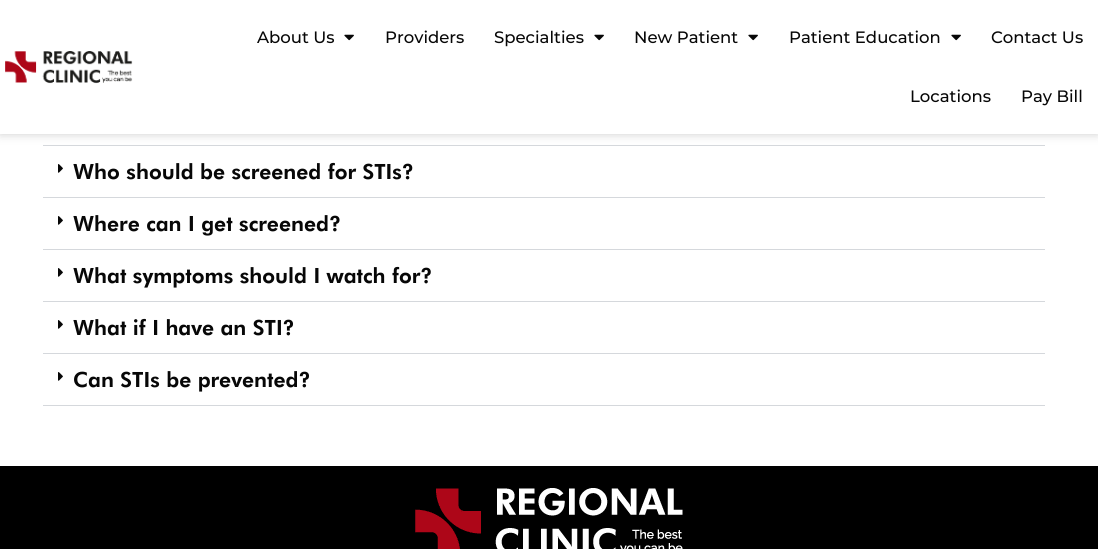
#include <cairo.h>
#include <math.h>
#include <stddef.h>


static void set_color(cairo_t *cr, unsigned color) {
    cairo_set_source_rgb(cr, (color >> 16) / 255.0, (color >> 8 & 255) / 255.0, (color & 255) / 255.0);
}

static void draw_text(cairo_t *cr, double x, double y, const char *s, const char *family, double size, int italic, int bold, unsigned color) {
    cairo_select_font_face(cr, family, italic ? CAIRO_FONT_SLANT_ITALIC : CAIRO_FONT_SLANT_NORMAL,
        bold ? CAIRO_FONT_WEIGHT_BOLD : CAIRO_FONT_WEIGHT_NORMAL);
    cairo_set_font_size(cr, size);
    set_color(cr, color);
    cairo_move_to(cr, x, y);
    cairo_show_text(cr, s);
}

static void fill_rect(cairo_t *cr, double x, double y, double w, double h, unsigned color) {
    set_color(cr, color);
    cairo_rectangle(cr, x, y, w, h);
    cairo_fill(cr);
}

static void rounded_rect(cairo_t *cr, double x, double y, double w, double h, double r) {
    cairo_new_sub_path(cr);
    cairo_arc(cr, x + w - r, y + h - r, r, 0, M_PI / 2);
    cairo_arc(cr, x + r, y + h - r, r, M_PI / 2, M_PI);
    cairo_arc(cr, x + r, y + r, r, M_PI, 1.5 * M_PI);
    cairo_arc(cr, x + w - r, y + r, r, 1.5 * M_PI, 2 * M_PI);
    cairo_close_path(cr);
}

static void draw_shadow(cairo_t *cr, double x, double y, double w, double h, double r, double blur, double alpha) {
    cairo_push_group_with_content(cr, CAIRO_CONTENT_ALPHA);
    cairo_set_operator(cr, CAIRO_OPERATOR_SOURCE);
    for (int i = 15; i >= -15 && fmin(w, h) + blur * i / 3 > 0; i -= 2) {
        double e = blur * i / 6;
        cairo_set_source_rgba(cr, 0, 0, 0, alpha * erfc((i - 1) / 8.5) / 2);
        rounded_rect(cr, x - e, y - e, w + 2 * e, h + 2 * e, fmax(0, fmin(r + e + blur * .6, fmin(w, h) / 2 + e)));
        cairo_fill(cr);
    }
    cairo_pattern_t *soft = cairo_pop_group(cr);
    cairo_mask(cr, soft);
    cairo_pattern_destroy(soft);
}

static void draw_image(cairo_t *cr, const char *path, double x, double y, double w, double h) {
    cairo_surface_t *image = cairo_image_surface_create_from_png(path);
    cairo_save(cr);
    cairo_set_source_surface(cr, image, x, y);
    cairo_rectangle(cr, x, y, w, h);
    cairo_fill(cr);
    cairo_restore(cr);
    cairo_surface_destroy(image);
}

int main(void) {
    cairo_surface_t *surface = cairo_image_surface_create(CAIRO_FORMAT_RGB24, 1098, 549);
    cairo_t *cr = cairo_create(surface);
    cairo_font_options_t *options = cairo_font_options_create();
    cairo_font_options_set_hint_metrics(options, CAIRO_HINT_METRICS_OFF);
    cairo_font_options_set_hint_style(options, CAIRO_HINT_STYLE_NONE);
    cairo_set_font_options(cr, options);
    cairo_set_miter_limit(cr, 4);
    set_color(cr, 0xFFFFFF);
    cairo_paint(cr);
    fill_rect(cr, 43, 145, 1002, 1, 0xD5D8DC);
    set_color(cr, 0x000000);
    draw_shadow(cr, 0, 0, 1098, 134, 0, 5, 0.2);
    fill_rect(cr, 0, 0, 1098, 134, 0xFFFFFF);
    draw_image(cr, "assets/img1.png", 5, 51, 128, 33);
    draw_text(cr, 257, 43, "About Us", "Montserrat Medium", 16.5, 0, 0, 0x070707);
    draw_image(cr, "assets/img2.png", 344, 34, 10, 7);
    draw_text(cr, 385, 43, "Providers", "Montserrat Medium", 16.5, 0, 0, 0x070707);
    draw_text(cr, 494, 43, "Specialties", "Montserrat Medium", 16.5, 0, 0, 0x070707);
    draw_image(cr, "assets/img2.png", 594, 34, 10, 7);
    draw_text(cr, 634, 43, "New Patient", "Montserrat Medium", 16.5, 0, 0, 0x070707);
    draw_image(cr, "assets/img2.png", 748, 34, 10, 7);
    draw_text(cr, 789, 43, "Patient Education", "Montserrat Medium", 16.5, 0, 0, 0x070707);
    draw_image(cr, "assets/img2.png", 951, 34, 10, 7);
    draw_text(cr, 991, 43, "Contact Us", "Montserrat Medium", 16.5, 0, 0, 0x070707);
    draw_text(cr, 910, 102, "Locations", "Montserrat Medium", 16.5, 0, 0, 0x070707);
    draw_text(cr, 1021, 102, "Pay Bill", "Montserrat Medium", 16.5, 0, 0, 0x070707);
    fill_rect(cr, 43, 197, 1002, 1, 0xD5D8DC);
    draw_image(cr, "assets/img3.png", 58, 164, 5, 9);
    draw_text(cr, 73, 179, "Who should be screened for STIs?", "Futura Black", 21, 0, 0, 0x070707);
    fill_rect(cr, 43, 249, 1002, 1, 0xD5D8DC);
    draw_image(cr, "assets/img3.png", 58, 216, 5, 9);
    draw_text(cr, 73, 231, "Where can I get screened?", "Futura Black", 21, 0, 0, 0x070707);
    fill_rect(cr, 43, 301, 1002, 1, 0xD5D8DC);
    draw_image(cr, "assets/img3.png", 58, 268, 5, 9);
    draw_text(cr, 73, 283, "What symptoms should I watch for?", "Futura Black", 21, 0, 0, 0x070707);
    fill_rect(cr, 43, 353, 1002, 1, 0xD5D8DC);
    draw_image(cr, "assets/img3.png", 58, 320, 5, 9);
    draw_text(cr, 73, 335, "What if I have an STI?", "Futura Black", 21, 0, 0, 0x070707);
    fill_rect(cr, 43, 405, 1002, 1, 0xD5D8DC);
    draw_image(cr, "assets/img3.png", 58, 372, 5, 9);
    draw_text(cr, 73, 387, "Can STIs be prevented?", "Futura Black", 21, 0, 0, 0x070707);
    fill_rect(cr, 0, 466, 1098, 83, 0x000000);
    draw_image(cr, "assets/img4.png", 415, 488, 268, 61);
    cairo_surface_write_to_png(surface, "output.png");
    cairo_font_options_destroy(options);
    cairo_destroy(cr);
    cairo_surface_destroy(surface);
    return 0;
}
